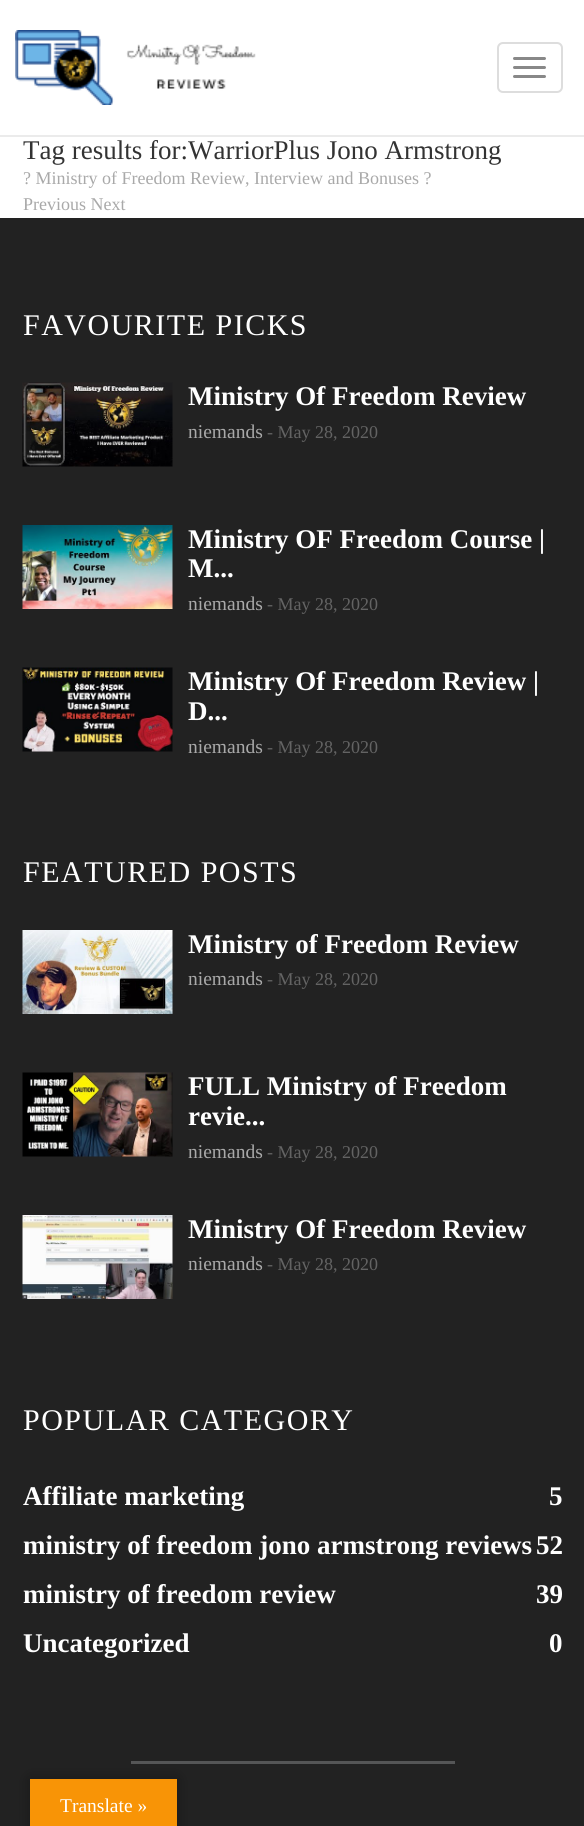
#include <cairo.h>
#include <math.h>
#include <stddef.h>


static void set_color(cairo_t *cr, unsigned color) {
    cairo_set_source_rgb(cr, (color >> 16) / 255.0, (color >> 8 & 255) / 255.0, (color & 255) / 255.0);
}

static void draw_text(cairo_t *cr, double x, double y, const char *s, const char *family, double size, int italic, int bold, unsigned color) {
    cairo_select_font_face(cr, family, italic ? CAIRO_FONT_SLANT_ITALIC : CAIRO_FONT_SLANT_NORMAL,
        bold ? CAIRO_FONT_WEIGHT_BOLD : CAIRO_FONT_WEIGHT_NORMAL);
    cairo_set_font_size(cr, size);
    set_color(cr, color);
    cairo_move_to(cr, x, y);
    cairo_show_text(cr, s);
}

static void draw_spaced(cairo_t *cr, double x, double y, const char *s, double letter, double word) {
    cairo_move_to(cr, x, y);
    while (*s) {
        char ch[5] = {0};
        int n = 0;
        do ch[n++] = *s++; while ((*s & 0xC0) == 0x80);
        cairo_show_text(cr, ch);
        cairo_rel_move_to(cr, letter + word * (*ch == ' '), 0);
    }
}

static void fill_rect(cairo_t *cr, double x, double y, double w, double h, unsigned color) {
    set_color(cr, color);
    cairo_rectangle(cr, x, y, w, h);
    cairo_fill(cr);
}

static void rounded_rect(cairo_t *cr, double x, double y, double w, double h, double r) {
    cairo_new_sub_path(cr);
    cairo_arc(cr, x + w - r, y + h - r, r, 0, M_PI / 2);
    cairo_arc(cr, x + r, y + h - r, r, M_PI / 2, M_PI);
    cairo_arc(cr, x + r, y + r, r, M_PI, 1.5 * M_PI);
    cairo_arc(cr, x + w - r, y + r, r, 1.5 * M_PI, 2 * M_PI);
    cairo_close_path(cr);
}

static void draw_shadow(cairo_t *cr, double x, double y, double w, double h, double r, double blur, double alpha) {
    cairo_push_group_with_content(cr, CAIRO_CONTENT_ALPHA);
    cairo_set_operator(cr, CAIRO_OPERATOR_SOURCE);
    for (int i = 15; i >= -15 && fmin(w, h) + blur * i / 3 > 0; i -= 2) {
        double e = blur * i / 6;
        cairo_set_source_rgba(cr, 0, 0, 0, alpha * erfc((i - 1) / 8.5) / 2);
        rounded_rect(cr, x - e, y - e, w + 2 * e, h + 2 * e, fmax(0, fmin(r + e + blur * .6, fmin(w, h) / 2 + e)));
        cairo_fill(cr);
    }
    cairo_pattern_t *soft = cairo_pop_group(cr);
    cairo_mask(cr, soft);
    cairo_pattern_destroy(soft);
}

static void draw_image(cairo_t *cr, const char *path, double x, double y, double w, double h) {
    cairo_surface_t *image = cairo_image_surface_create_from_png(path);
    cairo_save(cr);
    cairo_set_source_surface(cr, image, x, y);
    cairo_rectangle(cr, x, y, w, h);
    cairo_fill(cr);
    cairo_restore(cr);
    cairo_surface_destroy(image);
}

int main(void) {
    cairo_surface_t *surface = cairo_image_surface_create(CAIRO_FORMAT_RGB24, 584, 1826);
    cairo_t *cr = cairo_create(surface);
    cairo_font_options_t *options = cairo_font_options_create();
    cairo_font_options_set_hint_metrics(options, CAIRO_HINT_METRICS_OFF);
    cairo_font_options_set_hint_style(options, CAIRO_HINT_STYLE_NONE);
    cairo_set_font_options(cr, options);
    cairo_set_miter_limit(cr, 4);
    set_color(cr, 0xFFFFFF);
    cairo_paint(cr);
    fill_rect(cr, 0, 135, 584, 2, 0xEBEBEB);
    draw_image(cr, "assets/img1.png", 15, 30, 241, 75);
    rounded_rect(cr, 498, 43, 64, 49, 5);
    set_color(cr, 0xDDDDDD);
    cairo_stroke(cr);
    set_color(cr, 0x888888);
    rounded_rect(cr, 513, 57, 33, 3, 1.5);
    cairo_fill(cr);
    rounded_rect(cr, 513, 66, 33, 3, 1.5);
    cairo_fill(cr);
    rounded_rect(cr, 513, 75, 33, 3, 1.5);
    cairo_fill(cr);
    draw_text(cr, 23, 159, "Tag results for:WarriorPlus Jono Armstrong", "Liberation Serif", 27, 0, 0, 0x333333);
    draw_text(cr, 23, 184, "? Ministry of Freedom Review, Interview and Bonuses ?", "Liberation Serif", 18, 0, 0, 0xA9A9A9);
    draw_text(cr, 23, 210, "Previous Next", "Liberation Serif", 18, 0, 0, 0xA9A9A9);
    fill_rect(cr, 0, 218, 584, 1608, 0x222222);
    cairo_set_font_size(cr, 30);
    set_color(cr, 0xFFFFFF);
    draw_spaced(cr, 23, 335, "FAVOURITE PICKS", 1.5, 0);
    draw_image(cr, "assets/img2.png", 22, 382, 151, 85);
    draw_text(cr, 188, 405, "Ministry Of Freedom Review", "Liberation Serif", 27, 0, 1, 0xFFFFFF);
    draw_text(cr, 188, 438, "niemands", "Liberation Serif", 19.5, 0, 0, 0xA9A9A9);
    draw_text(cr, 267, 438, "- May 28, 2020", "Liberation Serif", 18, 0, 0, 0x636363);
    draw_image(cr, "assets/img3.png", 22, 525, 151, 84);
    draw_text(cr, 188, 548, "Ministry OF Freedom Course |", "Liberation Serif", 27, 0, 1, 0xFFFFFF);
    draw_text(cr, 188, 577, "M...", "Liberation Serif", 27, 0, 1, 0xFFFFFF);
    draw_text(cr, 188, 610, "niemands", "Liberation Serif", 19.5, 0, 0, 0xA9A9A9);
    draw_text(cr, 267, 610, "- May 28, 2020", "Liberation Serif", 18, 0, 0, 0x636363);
    draw_image(cr, "assets/img4.png", 22, 667, 151, 85);
    draw_text(cr, 188, 690, "Ministry Of Freedom Review |", "Liberation Serif", 27, 0, 1, 0xFFFFFF);
    draw_text(cr, 188, 720, "D...", "Liberation Serif", 27, 0, 1, 0xFFFFFF);
    draw_text(cr, 188, 753, "niemands", "Liberation Serif", 19.5, 0, 0, 0xA9A9A9);
    draw_text(cr, 267, 753, "- May 28, 2020", "Liberation Serif", 18, 0, 0, 0x636363);
    cairo_set_font_size(cr, 30);
    set_color(cr, 0xFFFFFF);
    draw_spaced(cr, 23, 882, "FEATURED POSTS", 1.5, 0);
    draw_image(cr, "assets/img5.png", 22, 930, 151, 84);
    draw_text(cr, 188, 953, "Ministry of Freedom Review", "Liberation Serif", 27, 0, 1, 0xFFFFFF);
    draw_text(cr, 188, 985, "niemands", "Liberation Serif", 19.5, 0, 0, 0xA9A9A9);
    draw_text(cr, 267, 985, "- May 28, 2020", "Liberation Serif", 18, 0, 0, 0x636363);
    draw_image(cr, "assets/img6.png", 22, 1072, 151, 85);
    draw_text(cr, 188, 1095, "FULL Ministry of Freedom", "Liberation Serif", 27, 0, 1, 0xFFFFFF);
    draw_text(cr, 188, 1125, "revie...", "Liberation Serif", 27, 0, 1, 0xFFFFFF);
    draw_text(cr, 188, 1158, "niemands", "Liberation Serif", 19.5, 0, 0, 0xA9A9A9);
    draw_text(cr, 267, 1158, "- May 28, 2020", "Liberation Serif", 18, 0, 0, 0x636363);
    draw_image(cr, "assets/img7.png", 22, 1215, 151, 84);
    draw_text(cr, 188, 1238, "Ministry Of Freedom Review", "Liberation Serif", 27, 0, 1, 0xFFFFFF);
    draw_text(cr, 188, 1270, "niemands", "Liberation Serif", 19.5, 0, 0, 0xA9A9A9);
    draw_text(cr, 267, 1270, "- May 28, 2020", "Liberation Serif", 18, 0, 0, 0x636363);
    cairo_set_font_size(cr, 30);
    set_color(cr, 0xFFFFFF);
    draw_spaced(cr, 23, 1430, "POPULAR CATEGORY", 1.5, 0);
    draw_text(cr, 23, 1505, "Affiliate marketing", "Liberation Serif", 27, 0, 1, 0xFFFFFF);
    draw_text(cr, 549, 1505, "5", "Liberation Serif", 27, 0, 1, 0xFFFFFF);
    draw_text(cr, 23, 1554, "ministry of freedom jono armstrong reviews", "Liberation Serif", 27, 0, 1, 0xFFFFFF);
    draw_text(cr, 536, 1554, "52", "Liberation Serif", 27, 0, 1, 0xFFFFFF);
    draw_text(cr, 23, 1603, "ministry of freedom review", "Liberation Serif", 27, 0, 1, 0xFFFFFF);
    draw_text(cr, 536, 1603, "39", "Liberation Serif", 27, 0, 1, 0xFFFFFF);
    draw_text(cr, 23, 1652, "Uncategorized", "Liberation Serif", 27, 0, 1, 0xFFFFFF);
    draw_text(cr, 549, 1652, "0", "Liberation Serif", 27, 0, 1, 0xFFFFFF);
    fill_rect(cr, 131, 1761, 324, 3, 0x555657);
    set_color(cr, 0x000000);
    draw_shadow(cr, 30, 1779, 147, 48, 0, 7, 0.3);
    fill_rect(cr, 30, 1779, 147, 47, 0xF89406);
    draw_text(cr, 60, 1812, "Translate »", "Liberation Serif", 19.5, 0, 0, 0xFFFFFF);
    cairo_surface_write_to_png(surface, "output.png");
    cairo_font_options_destroy(options);
    cairo_destroy(cr);
    cairo_surface_destroy(surface);
    return 0;
}
